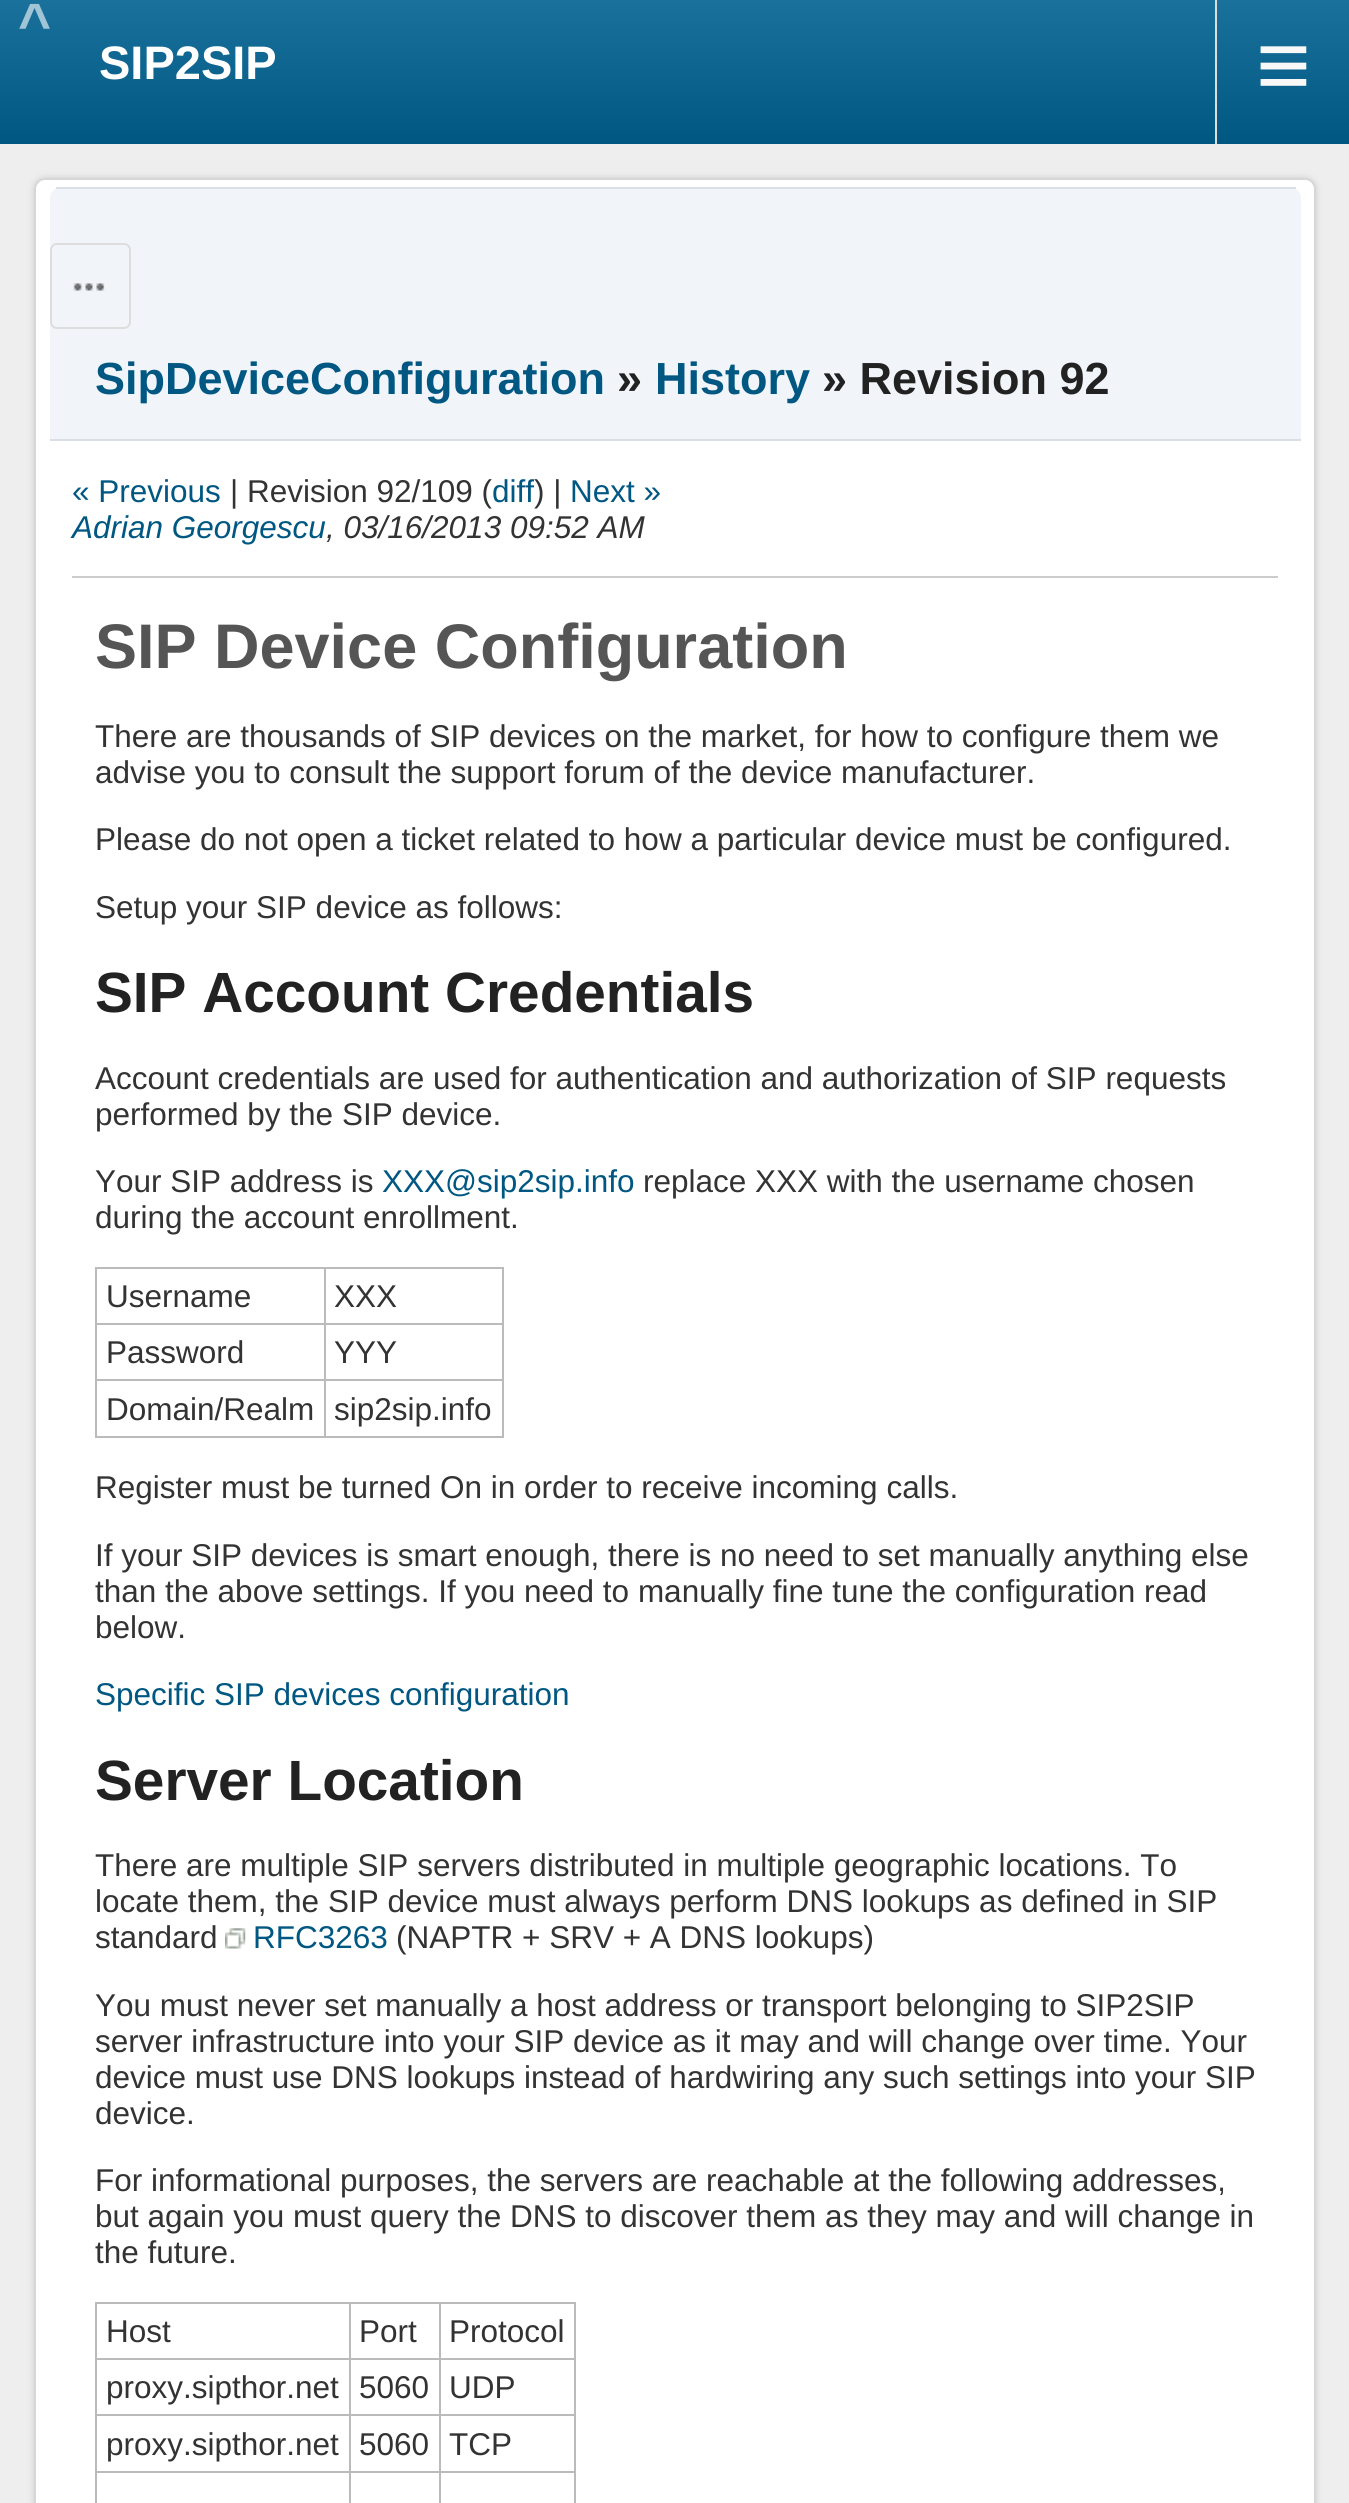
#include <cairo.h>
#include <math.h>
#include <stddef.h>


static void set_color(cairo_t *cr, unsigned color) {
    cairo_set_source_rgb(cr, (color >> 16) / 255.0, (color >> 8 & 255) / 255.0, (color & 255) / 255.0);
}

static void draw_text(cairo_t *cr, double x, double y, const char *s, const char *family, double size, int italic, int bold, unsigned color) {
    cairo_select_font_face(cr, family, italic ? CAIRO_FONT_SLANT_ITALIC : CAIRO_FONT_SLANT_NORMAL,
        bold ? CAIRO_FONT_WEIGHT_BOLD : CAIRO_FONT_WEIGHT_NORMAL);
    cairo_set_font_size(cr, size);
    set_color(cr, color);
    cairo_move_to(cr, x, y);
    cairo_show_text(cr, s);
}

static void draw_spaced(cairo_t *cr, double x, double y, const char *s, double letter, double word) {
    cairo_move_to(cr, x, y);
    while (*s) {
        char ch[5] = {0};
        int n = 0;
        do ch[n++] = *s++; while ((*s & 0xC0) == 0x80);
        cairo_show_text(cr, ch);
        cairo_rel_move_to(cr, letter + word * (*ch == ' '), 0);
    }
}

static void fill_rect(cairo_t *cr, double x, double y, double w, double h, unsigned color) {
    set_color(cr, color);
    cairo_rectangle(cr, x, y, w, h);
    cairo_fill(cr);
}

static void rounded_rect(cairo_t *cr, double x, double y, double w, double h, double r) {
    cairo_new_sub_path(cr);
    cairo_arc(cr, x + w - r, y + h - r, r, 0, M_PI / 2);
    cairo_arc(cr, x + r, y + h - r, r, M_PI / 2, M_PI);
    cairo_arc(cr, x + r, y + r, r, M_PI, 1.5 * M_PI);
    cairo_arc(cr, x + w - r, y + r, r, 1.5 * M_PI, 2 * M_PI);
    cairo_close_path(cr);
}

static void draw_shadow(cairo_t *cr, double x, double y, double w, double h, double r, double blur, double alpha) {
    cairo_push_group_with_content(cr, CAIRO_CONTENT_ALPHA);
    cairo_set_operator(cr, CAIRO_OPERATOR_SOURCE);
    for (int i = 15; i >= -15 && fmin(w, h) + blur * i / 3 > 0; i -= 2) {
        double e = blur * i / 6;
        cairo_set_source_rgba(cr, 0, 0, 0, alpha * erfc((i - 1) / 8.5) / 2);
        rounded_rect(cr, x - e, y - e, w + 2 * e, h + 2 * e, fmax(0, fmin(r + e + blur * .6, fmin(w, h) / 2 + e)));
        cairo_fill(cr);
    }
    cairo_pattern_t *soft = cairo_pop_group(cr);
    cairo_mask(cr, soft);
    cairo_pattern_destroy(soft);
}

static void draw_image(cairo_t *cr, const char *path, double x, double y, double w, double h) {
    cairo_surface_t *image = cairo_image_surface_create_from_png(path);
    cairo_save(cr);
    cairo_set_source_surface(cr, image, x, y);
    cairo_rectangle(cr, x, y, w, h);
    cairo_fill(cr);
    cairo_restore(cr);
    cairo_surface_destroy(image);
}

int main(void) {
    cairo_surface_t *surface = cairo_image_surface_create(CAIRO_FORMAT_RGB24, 1349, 2503);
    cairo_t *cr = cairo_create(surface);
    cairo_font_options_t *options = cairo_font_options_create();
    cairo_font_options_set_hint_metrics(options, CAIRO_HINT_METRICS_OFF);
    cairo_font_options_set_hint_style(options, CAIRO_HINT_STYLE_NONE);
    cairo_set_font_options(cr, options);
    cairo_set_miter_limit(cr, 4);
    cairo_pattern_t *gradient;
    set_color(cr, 0xEEEEEE);
    cairo_paint(cr);
    gradient = cairo_pattern_create_linear(0, 0, 0, 144);
    cairo_pattern_add_color_stop_rgba(gradient, 0, 0.102, 0.443, 0.612, 1);
    cairo_pattern_add_color_stop_rgba(gradient, 1, 0, 0.341, 0.51, 1);
    cairo_set_source(cr, gradient);
    cairo_pattern_destroy(gradient);
    cairo_rectangle(cr, 0, 0, 1349, 144);
    cairo_fill(cr);
    cairo_select_font_face(cr, "Liberation Sans", CAIRO_FONT_SLANT_NORMAL, CAIRO_FONT_WEIGHT_BOLD);
    cairo_set_font_size(cr, 56.75);
    set_color(cr, 0xA2C5D6);
    draw_spaced(cr, 18, 43, "^", 8, 0);
    draw_text(cr, 99, 79, "SIP2SIP", "Liberation Sans", 47, 0, 1, 0xFFFFFF);
    fill_rect(cr, 1215, 0, 2, 144, 0xDDDDDD);
    draw_text(cr, 1256, 97, "≡", "Liberation Sans", 94, 0, 0, 0xF8F8F8);
    set_color(cr, 0xCCCCCC);
    draw_shadow(cr, 34, 178, 1282, 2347, 11, 3.5, 1);
    set_color(cr, 0xFFFFFF);
    rounded_rect(cr, 35, 179, 1280, 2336, 10);
    cairo_fill_preserve(cr);
    set_color(cr, 0xD7D7D7);
    cairo_stroke(cr);
    set_color(cr, 0xF1F5FA);
    cairo_new_path(cr);
    cairo_move_to(cr, 61, 187);
    cairo_line_to(cr, 1290, 187);
    cairo_curve_to(cr, 1296, 187, 1301, 192, 1301, 198);
    cairo_line_to(cr, 1301, 441);
    cairo_line_to(cr, 50, 441);
    cairo_line_to(cr, 50, 198);
    cairo_curve_to(cr, 50, 192, 55, 187, 61, 187);
    cairo_close_path(cr);
    cairo_fill(cr);
    rounded_rect(cr, 51, 244, 79, 84, 6);
    set_color(cr, 0xDDDDDD);
    cairo_stroke(cr);
    draw_image(cr, "assets/img1.png", 73, 283, 32, 8);
    fill_rect(cr, 56, 187, 1240, 2, 0xDADEE5);
    fill_rect(cr, 50, 439, 1251, 2, 0xDADEE5);
    draw_text(cr, 95, 394, "SipDeviceConfiguration", "Liberation Sans", 45, 0, 1, 0x005782);
    draw_text(cr, 617, 394, "»", "Liberation Sans", 45, 0, 1, 0x222222);
    draw_text(cr, 655, 394, "History", "Liberation Sans", 45, 0, 1, 0x005782);
    draw_text(cr, 822, 394, "» Revision 92", "Liberation Sans", 45, 0, 1, 0x222222);
    draw_text(cr, 72, 502, "« Previous", "Liberation Sans", 31.5, 0, 0, 0x005782);
    draw_text(cr, 230, 502, "| Revision 92/109 (", "Liberation Sans", 31.5, 0, 0, 0x333333);
    draw_text(cr, 492, 502, "diff", "Liberation Sans", 31.5, 0, 0, 0x005782);
    draw_text(cr, 534, 502, ") |", "Liberation Sans", 31.5, 0, 0, 0x333333);
    draw_text(cr, 570, 502, "Next »", "Liberation Sans", 31.5, 0, 0, 0x005782);
    draw_text(cr, 72, 538, "Adrian Georgescu", "Liberation Sans", 31.5, 1, 0, 0x005782);
    draw_text(cr, 326, 538, ", 03/16/2013 09:52 AM", "Liberation Sans", 31.5, 1, 0, 0x333333);
    fill_rect(cr, 72, 576, 1206, 2, 0xCCCCCC);
    draw_text(cr, 95, 668, "SIP Device Configuration", "Liberation Sans", 63, 0, 1, 0x555555);
    draw_text(cr, 95, 747, "There are thousands of SIP devices on the market, for how to configure them we", "Liberation Sans", 31.5, 0, 0, 0x333333);
    draw_text(cr, 95, 783, "advise you to consult the support forum of the device manufacturer.", "Liberation Sans", 31.5, 0, 0, 0x333333);
    draw_text(cr, 95, 850, "Please do not open a ticket related to how a particular device must be configured.", "Liberation Sans", 31.5, 0, 0, 0x333333);
    draw_text(cr, 95, 918, "Setup your SIP device as follows:", "Liberation Sans", 31.5, 0, 0, 0x333333);
    draw_text(cr, 95, 1012, "SIP Account Credentials", "Liberation Sans", 56.75, 0, 1, 0x222222);
    draw_text(cr, 95, 1089, "Account credentials are used for authentication and authorization of SIP requests", "Liberation Sans", 31.5, 0, 0, 0x333333);
    draw_text(cr, 95, 1125, "performed by the SIP device.", "Liberation Sans", 31.5, 0, 0, 0x333333);
    draw_text(cr, 95, 1192, "Your SIP address is", "Liberation Sans", 31.5, 0, 0, 0x333333);
    draw_text(cr, 382, 1192, "XXX@sip2sip.info", "Liberation Sans", 31.5, 0, 0, 0x005782);
    draw_text(cr, 643, 1192, "replace XXX with the username chosen", "Liberation Sans", 31.5, 0, 0, 0x333333);
    draw_text(cr, 95, 1228, "during the account enrollment.", "Liberation Sans", 31.5, 0, 0, 0x333333);
    fill_rect(cr, 95, 1267, 409, 2, 0xBBBBBB);
    fill_rect(cr, 502, 1267, 2, 171, 0xBBBBBB);
    fill_rect(cr, 95, 1436, 409, 2, 0xBBBBBB);
    fill_rect(cr, 95, 1267, 2, 171, 0xBBBBBB);
    draw_text(cr, 106, 1307, "Username", "Liberation Sans", 31.5, 0, 0, 0x333333);
    fill_rect(cr, 324, 1323, 180, 2, 0xBBBBBB);
    fill_rect(cr, 324, 1379, 180, 2, 0xBBBBBB);
    fill_rect(cr, 324, 1379, 2, 59, 0xBBBBBB);
    fill_rect(cr, 95, 1379, 231, 2, 0xBBBBBB);
    fill_rect(cr, 324, 1323, 2, 59, 0xBBBBBB);
    fill_rect(cr, 95, 1323, 231, 2, 0xBBBBBB);
    fill_rect(cr, 324, 1267, 2, 58, 0xBBBBBB);
    draw_text(cr, 334, 1307, "XXX", "Liberation Sans", 31.5, 0, 0, 0x333333);
    draw_text(cr, 106, 1363, "Password", "Liberation Sans", 31.5, 0, 0, 0x333333);
    draw_text(cr, 334, 1363, "YYY", "Liberation Sans", 31.5, 0, 0, 0x333333);
    draw_text(cr, 106, 1420, "Domain/Realm", "Liberation Sans", 31.5, 0, 0, 0x333333);
    draw_text(cr, 334, 1420, "sip2sip.info", "Liberation Sans", 31.5, 0, 0, 0x333333);
    draw_text(cr, 95, 1498, "Register must be turned On in order to receive incoming calls.", "Liberation Sans", 31.5, 0, 0, 0x333333);
    draw_text(cr, 95, 1566, "If your SIP devices is smart enough, there is no need to set manually anything else", "Liberation Sans", 31.5, 0, 0, 0x333333);
    draw_text(cr, 95, 1602, "than the above settings. If you need to manually fine tune the configuration read", "Liberation Sans", 31.5, 0, 0, 0x333333);
    draw_text(cr, 95, 1638, "below.", "Liberation Sans", 31.5, 0, 0, 0x333333);
    draw_text(cr, 95, 1705, "Specific SIP devices configuration", "Liberation Sans", 31.5, 0, 0, 0x005782);
    draw_text(cr, 95, 1800, "Server Location", "Liberation Sans", 56.75, 0, 1, 0x222222);
    draw_text(cr, 95, 1876, "There are multiple SIP servers distributed in multiple geographic locations. To", "Liberation Sans", 31.5, 0, 0, 0x333333);
    draw_text(cr, 95, 1912, "locate them, the SIP device must always perform DNS lookups as defined in SIP", "Liberation Sans", 31.5, 0, 0, 0x333333);
    draw_text(cr, 95, 1948, "standard", "Liberation Sans", 31.5, 0, 0, 0x333333);
    draw_image(cr, "assets/img2.png", 225, 1928, 21, 21);
    draw_text(cr, 253, 1948, "RFC3263", "Liberation Sans", 31.5, 0, 0, 0x005782);
    draw_text(cr, 396, 1948, "(NAPTR + SRV + A DNS lookups)", "Liberation Sans", 31.5, 0, 0, 0x333333);
    draw_text(cr, 95, 2016, "You must never set manually a host address or transport belonging to SIP2SIP", "Liberation Sans", 31.5, 0, 0, 0x333333);
    draw_text(cr, 95, 2052, "server infrastructure into your SIP device as it may and will change over time. Your", "Liberation Sans", 31.5, 0, 0, 0x333333);
    draw_text(cr, 95, 2088, "device must use DNS lookups instead of hardwiring any such settings into your SIP", "Liberation Sans", 31.5, 0, 0, 0x333333);
    draw_text(cr, 95, 2124, "device.", "Liberation Sans", 31.5, 0, 0, 0x333333);
    draw_text(cr, 95, 2191, "For informational purposes, the servers are reachable at the following addresses,", "Liberation Sans", 31.5, 0, 0, 0x333333);
    draw_text(cr, 95, 2227, "but again you must query the DNS to discover them as they may and will change in", "Liberation Sans", 31.5, 0, 0, 0x333333);
    draw_text(cr, 95, 2263, "the future.", "Liberation Sans", 31.5, 0, 0, 0x333333);
    fill_rect(cr, 95, 2302, 481, 2, 0xBBBBBB);
    fill_rect(cr, 574, 2302, 2, 201, 0xBBBBBB);
    fill_rect(cr, 95, 2302, 2, 201, 0xBBBBBB);
    draw_text(cr, 106, 2342, "Host", "Liberation Sans", 31.5, 0, 0, 0x333333);
    fill_rect(cr, 439, 2358, 137, 2, 0xBBBBBB);
    fill_rect(cr, 439, 2414, 137, 2, 0xBBBBBB);
    fill_rect(cr, 439, 2471, 137, 2, 0xBBBBBB);
    fill_rect(cr, 439, 2471, 2, 32, 0xBBBBBB);
    fill_rect(cr, 349, 2471, 92, 2, 0xBBBBBB);
    fill_rect(cr, 439, 2414, 2, 59, 0xBBBBBB);
    fill_rect(cr, 349, 2414, 92, 2, 0xBBBBBB);
    fill_rect(cr, 439, 2358, 2, 59, 0xBBBBBB);
    fill_rect(cr, 349, 2358, 92, 2, 0xBBBBBB);
    fill_rect(cr, 349, 2471, 2, 32, 0xBBBBBB);
    fill_rect(cr, 95, 2471, 256, 2, 0xBBBBBB);
    fill_rect(cr, 349, 2414, 2, 59, 0xBBBBBB);
    fill_rect(cr, 95, 2414, 256, 2, 0xBBBBBB);
    fill_rect(cr, 349, 2358, 2, 59, 0xBBBBBB);
    fill_rect(cr, 95, 2358, 256, 2, 0xBBBBBB);
    fill_rect(cr, 349, 2302, 2, 58, 0xBBBBBB);
    draw_text(cr, 359, 2342, "Port", "Liberation Sans", 31.5, 0, 0, 0x333333);
    fill_rect(cr, 439, 2302, 2, 58, 0xBBBBBB);
    draw_text(cr, 449, 2342, "Protocol", "Liberation Sans", 31.5, 0, 0, 0x333333);
    draw_text(cr, 106, 2398, "proxy.sipthor.net", "Liberation Sans", 31.5, 0, 0, 0x333333);
    draw_text(cr, 359, 2398, "5060", "Liberation Sans", 31.5, 0, 0, 0x333333);
    draw_text(cr, 449, 2398, "UDP", "Liberation Sans", 31.5, 0, 0, 0x333333);
    draw_text(cr, 106, 2455, "proxy.sipthor.net", "Liberation Sans", 31.5, 0, 0, 0x333333);
    draw_text(cr, 359, 2455, "5060", "Liberation Sans", 31.5, 0, 0, 0x333333);
    draw_text(cr, 449, 2455, "TCP", "Liberation Sans", 31.5, 0, 0, 0x333333);
    cairo_surface_write_to_png(surface, "output.png");
    cairo_font_options_destroy(options);
    cairo_destroy(cr);
    cairo_surface_destroy(surface);
    return 0;
}
